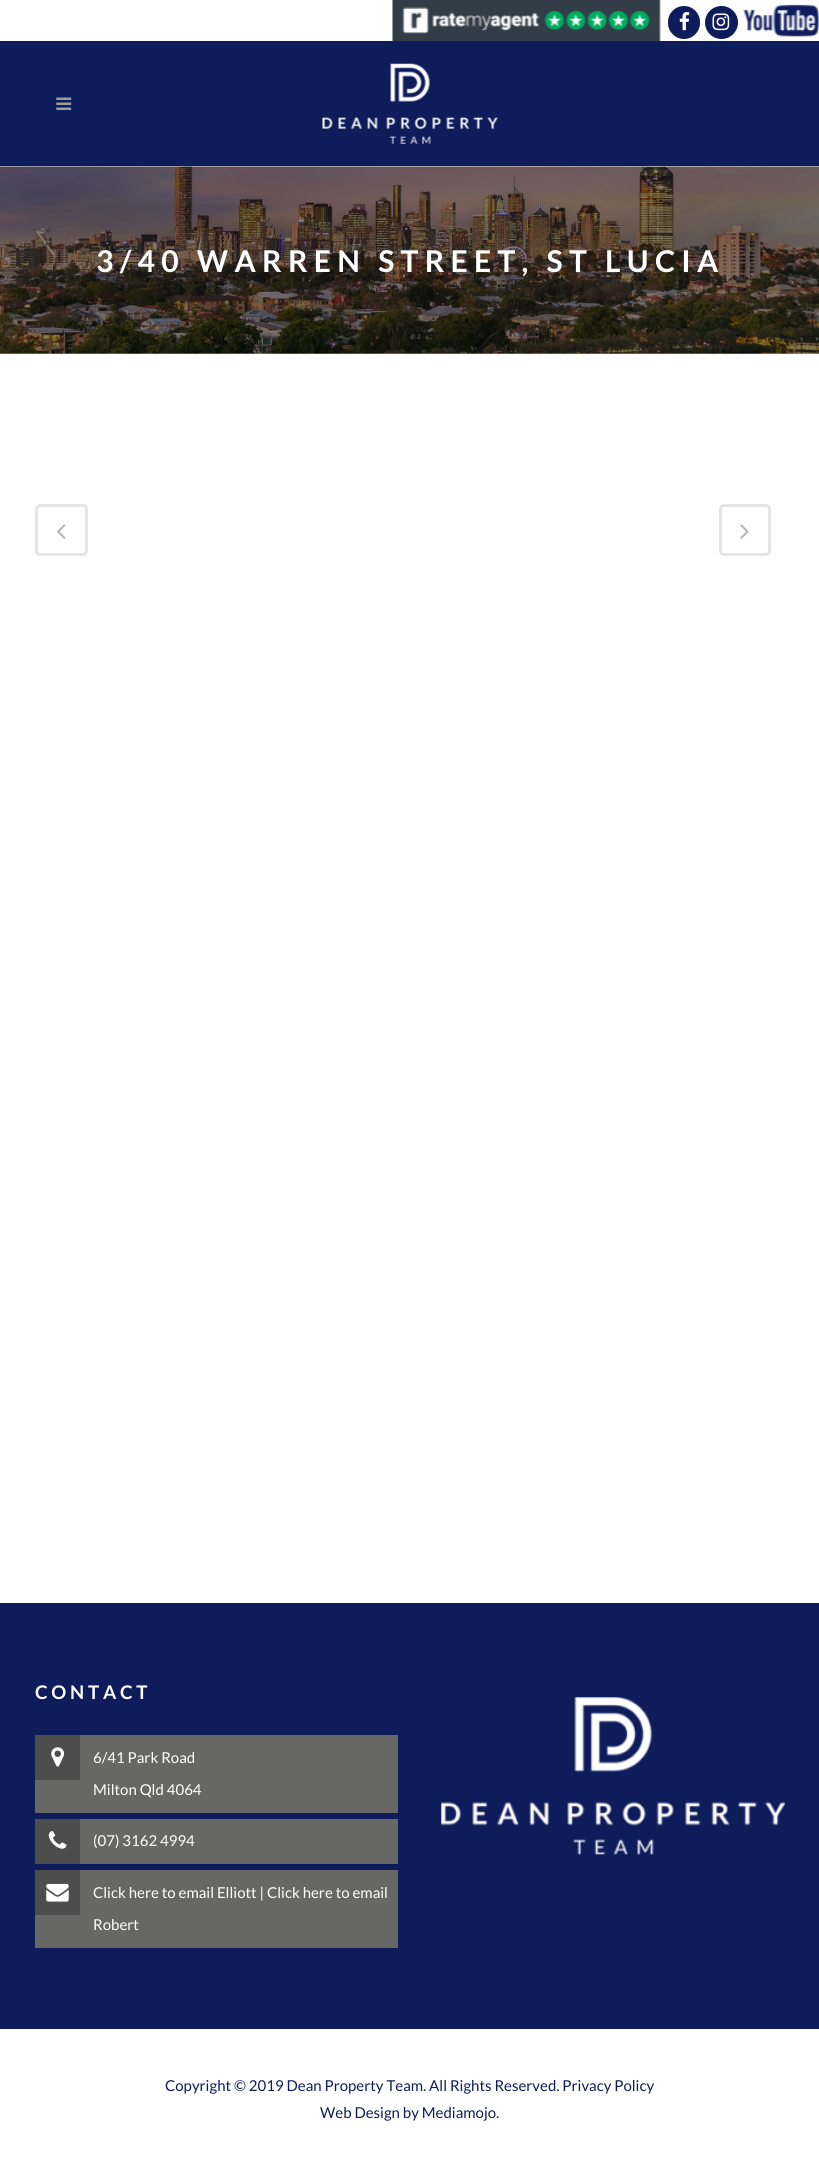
#include <cairo.h>
#include <math.h>
#include <stddef.h>


static void set_color(cairo_t *cr, unsigned color) {
    cairo_set_source_rgb(cr, (color >> 16) / 255.0, (color >> 8 & 255) / 255.0, (color & 255) / 255.0);
}

static void draw_text(cairo_t *cr, double x, double y, const char *s, const char *family, double size, int italic, int bold, unsigned color) {
    cairo_select_font_face(cr, family, italic ? CAIRO_FONT_SLANT_ITALIC : CAIRO_FONT_SLANT_NORMAL,
        bold ? CAIRO_FONT_WEIGHT_BOLD : CAIRO_FONT_WEIGHT_NORMAL);
    cairo_set_font_size(cr, size);
    set_color(cr, color);
    cairo_move_to(cr, x, y);
    cairo_show_text(cr, s);
}

static void draw_spaced(cairo_t *cr, double x, double y, const char *s, double letter, double word) {
    cairo_move_to(cr, x, y);
    while (*s) {
        char ch[5] = {0};
        int n = 0;
        do ch[n++] = *s++; while ((*s & 0xC0) == 0x80);
        cairo_show_text(cr, ch);
        cairo_rel_move_to(cr, letter + word * (*ch == ' '), 0);
    }
}

static void fill_rect(cairo_t *cr, double x, double y, double w, double h, unsigned color) {
    set_color(cr, color);
    cairo_rectangle(cr, x, y, w, h);
    cairo_fill(cr);
}

static void rounded_rect(cairo_t *cr, double x, double y, double w, double h, double r) {
    cairo_new_sub_path(cr);
    cairo_arc(cr, x + w - r, y + h - r, r, 0, M_PI / 2);
    cairo_arc(cr, x + r, y + h - r, r, M_PI / 2, M_PI);
    cairo_arc(cr, x + r, y + r, r, M_PI, 1.5 * M_PI);
    cairo_arc(cr, x + w - r, y + r, r, 1.5 * M_PI, 2 * M_PI);
    cairo_close_path(cr);
}

static void draw_image(cairo_t *cr, const char *path, double x, double y, double w, double h) {
    cairo_surface_t *image = cairo_image_surface_create_from_png(path);
    cairo_save(cr);
    cairo_set_source_surface(cr, image, x, y);
    cairo_rectangle(cr, x, y, w, h);
    cairo_fill(cr);
    cairo_restore(cr);
    cairo_surface_destroy(image);
}

int main(void) {
    cairo_surface_t *surface = cairo_image_surface_create(CAIRO_FORMAT_RGB24, 819, 2169);
    cairo_t *cr = cairo_create(surface);
    cairo_font_options_t *options = cairo_font_options_create();
    cairo_font_options_set_hint_metrics(options, CAIRO_HINT_METRICS_OFF);
    cairo_font_options_set_hint_style(options, CAIRO_HINT_STYLE_NONE);
    cairo_set_font_options(cr, options);
    cairo_set_miter_limit(cr, 4);
    set_color(cr, 0xFFFFFF);
    cairo_paint(cr);
    fill_rect(cr, 0, 41, 819, 125, 0x0F1C5C);
    draw_image(cr, "assets/img1.png", 392, 0, 269, 42);
    rounded_rect(cr, 668, 6, 32, 33, 16);
    cairo_fill(cr);
    draw_image(cr, "assets/img2.png", 679, 12, 11, 19);
    cairo_arc(cr, 721.5, 22.5, 16.5, 0, 2 * M_PI);
    cairo_fill(cr);
    draw_image(cr, "assets/img3.png", 712, 13, 18, 18);
    draw_image(cr, "assets/img4.png", 743, 4, 76, 33);
    draw_image(cr, "assets/img5.png", 56, 97, 16, 13);
    draw_image(cr, "assets/img6.png", 322, 63, 176, 81);
    draw_image(cr, "assets/img7.png", 0, 166, 819, 188);
    cairo_select_font_face(cr, "Lato", CAIRO_FONT_SLANT_NORMAL, CAIRO_FONT_WEIGHT_BOLD);
    cairo_set_font_size(cr, 30);
    set_color(cr, 0xFFFFFF);
    draw_spaced(cr, 96, 272, "3/40 WARREN STREET, ST LUCIA", 6.25, 0);
    rounded_rect(cr, 36.5, 505.5, 50, 49, 3.5);
    set_color(cr, 0xE5E5E5);
    cairo_set_line_width(cr, 3);
    cairo_stroke(cr);
    draw_image(cr, "assets/img8.png", 57, 524, 9, 15);
    rounded_rect(cr, 720.5, 505.5, 49, 49, 3.5);
    cairo_stroke(cr);
    draw_image(cr, "assets/img9.png", 740, 524, 9, 15);
    fill_rect(cr, 0, 1603, 819, 426, 0x0F1C5C);
    cairo_set_font_size(cr, 18.75);
    set_color(cr, 0xFFFFFF);
    draw_spaced(cr, 35, 1699, "CONTACT", 3.75, 0);
    fill_rect(cr, 35, 1735, 363, 78, 0x676766);
    fill_rect(cr, 35, 1735, 45, 45, 0x4D4D4D);
    draw_image(cr, "assets/img10.png", 51, 1747, 14, 20);
    draw_text(cr, 93, 1763, "6/41 Park Road", "Lato", 15, 0, 0, 0xFFFFFF);
    draw_text(cr, 93, 1795, "Milton Qld 4064", "Lato", 15, 0, 0, 0xFFFFFF);
    fill_rect(cr, 80, 1819, 318, 45, 0x676766);
    fill_rect(cr, 35, 1819, 45, 45, 0x4D4D4D);
    draw_image(cr, "assets/img11.png", 48, 1831, 19, 18);
    draw_text(cr, 93, 1846, "(07) 3162 4994", "Lato", 15, 0, 0, 0xFFFFFF);
    fill_rect(cr, 35, 1870, 363, 78, 0x676766);
    fill_rect(cr, 35, 1870, 45, 45, 0x4D4D4D);
    draw_image(cr, "assets/img12.png", 46, 1883, 23, 19);
    draw_text(cr, 93, 1898, "Click here to email Elliott | Click here to email", "Lato", 15, 0, 0, 0xFFFFFF);
    draw_text(cr, 93, 1930, "Robert", "Lato", 15, 0, 0, 0xFFFFFF);
    draw_image(cr, "assets/img13.png", 441, 1697, 344, 158);
    draw_text(cr, 165, 2091, "Copyright © 2019 Dean Property Team. All Rights Reserved. Privacy Policy", "Lato", 15, 0, 0, 0x0F1C5C);
    draw_text(cr, 320, 2118, "Web Design by Mediamojo.", "Lato", 15, 0, 0, 0x0F1C5C);
    cairo_surface_write_to_png(surface, "output.png");
    cairo_font_options_destroy(options);
    cairo_destroy(cr);
    cairo_surface_destroy(surface);
    return 0;
}
